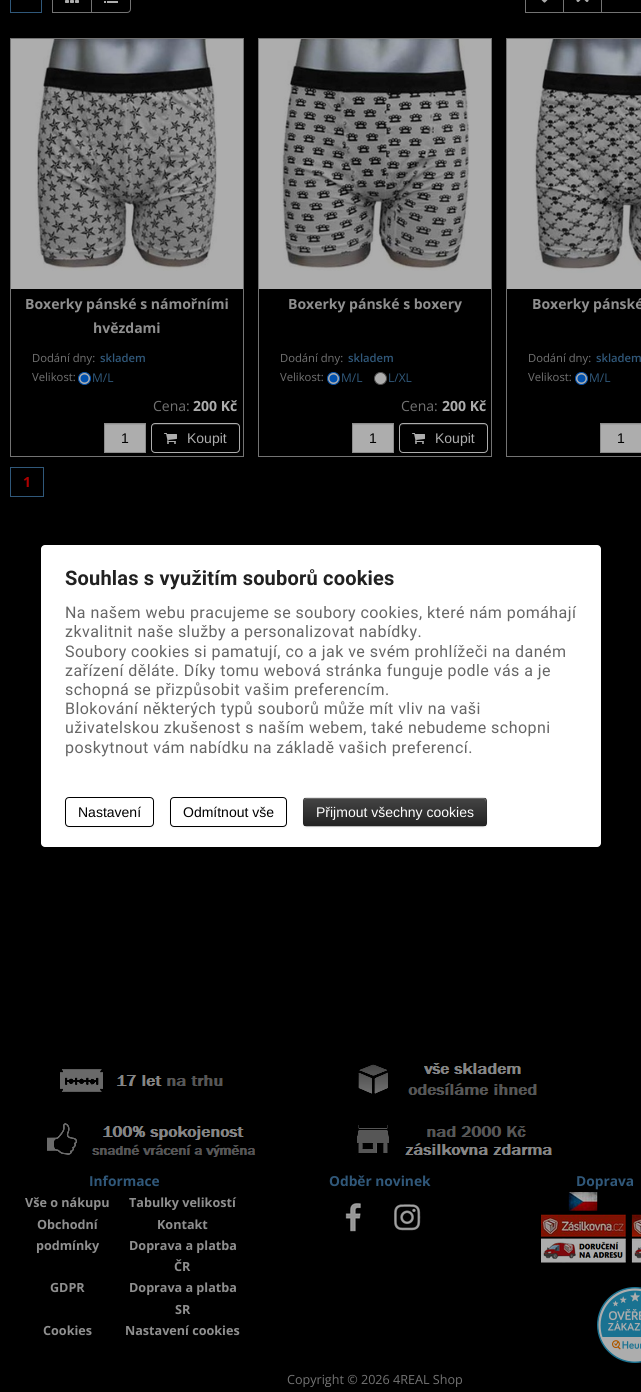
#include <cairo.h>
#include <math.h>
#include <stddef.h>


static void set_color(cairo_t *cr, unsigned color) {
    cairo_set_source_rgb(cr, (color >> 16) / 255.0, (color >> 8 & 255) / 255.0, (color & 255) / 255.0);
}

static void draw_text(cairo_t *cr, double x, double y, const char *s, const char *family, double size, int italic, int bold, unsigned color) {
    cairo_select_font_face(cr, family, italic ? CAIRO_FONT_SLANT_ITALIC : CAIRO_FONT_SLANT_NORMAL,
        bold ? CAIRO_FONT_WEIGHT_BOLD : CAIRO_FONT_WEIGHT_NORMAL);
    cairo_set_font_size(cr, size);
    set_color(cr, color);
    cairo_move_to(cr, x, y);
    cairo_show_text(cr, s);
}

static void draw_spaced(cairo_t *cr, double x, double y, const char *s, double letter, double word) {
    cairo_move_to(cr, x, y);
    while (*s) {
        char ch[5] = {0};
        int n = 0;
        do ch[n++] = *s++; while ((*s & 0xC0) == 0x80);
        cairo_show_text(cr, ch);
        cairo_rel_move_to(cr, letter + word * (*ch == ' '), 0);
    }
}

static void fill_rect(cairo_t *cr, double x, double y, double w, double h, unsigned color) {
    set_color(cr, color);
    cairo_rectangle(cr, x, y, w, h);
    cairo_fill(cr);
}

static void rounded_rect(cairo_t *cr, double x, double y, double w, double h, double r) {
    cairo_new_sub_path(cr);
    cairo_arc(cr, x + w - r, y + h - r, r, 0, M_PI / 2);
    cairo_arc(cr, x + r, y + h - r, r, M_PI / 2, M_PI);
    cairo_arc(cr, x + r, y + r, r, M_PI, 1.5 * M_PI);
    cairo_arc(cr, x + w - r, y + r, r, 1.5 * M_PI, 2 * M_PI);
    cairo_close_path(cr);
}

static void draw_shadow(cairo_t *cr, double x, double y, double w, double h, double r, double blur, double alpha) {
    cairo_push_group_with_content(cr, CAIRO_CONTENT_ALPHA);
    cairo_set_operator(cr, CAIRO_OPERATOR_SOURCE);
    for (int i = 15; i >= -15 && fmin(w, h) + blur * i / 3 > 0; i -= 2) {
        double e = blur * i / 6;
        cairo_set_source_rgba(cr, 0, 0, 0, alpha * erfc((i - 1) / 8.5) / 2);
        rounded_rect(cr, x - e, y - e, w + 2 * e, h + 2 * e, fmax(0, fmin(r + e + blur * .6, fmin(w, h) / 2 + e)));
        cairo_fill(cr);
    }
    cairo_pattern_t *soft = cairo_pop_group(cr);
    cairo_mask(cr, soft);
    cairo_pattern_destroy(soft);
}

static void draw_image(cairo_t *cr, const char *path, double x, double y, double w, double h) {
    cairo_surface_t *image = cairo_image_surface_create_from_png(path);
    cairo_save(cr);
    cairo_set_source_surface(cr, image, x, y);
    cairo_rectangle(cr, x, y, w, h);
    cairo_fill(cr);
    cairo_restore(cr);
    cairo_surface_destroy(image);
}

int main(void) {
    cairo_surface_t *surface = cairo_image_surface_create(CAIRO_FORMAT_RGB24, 641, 1392);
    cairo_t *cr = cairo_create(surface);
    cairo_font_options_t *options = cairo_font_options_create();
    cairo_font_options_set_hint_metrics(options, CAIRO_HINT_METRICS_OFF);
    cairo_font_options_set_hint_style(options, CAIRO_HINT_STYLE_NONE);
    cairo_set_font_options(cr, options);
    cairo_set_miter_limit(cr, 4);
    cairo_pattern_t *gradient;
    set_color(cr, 0x000000);
    cairo_paint(cr);
    cairo_rectangle(cr, 10.5, -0.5, 31, 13);
    set_color(cr, 0x30587A);
    cairo_set_line_width(cr, 1);
    cairo_stroke(cr);
    cairo_rectangle(cr, 52.5, -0.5, 39, 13);
    set_color(cr, 0x737373);
    cairo_stroke(cr);
    draw_image(cr, "assets/img1.png", 65, 0, 14, 3);
    set_color(cr, 0x000000);
    cairo_new_path(cr);
    cairo_move_to(cr, 91.5, -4.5);
    cairo_line_to(cr, 127, -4.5);
    cairo_curve_to(cr, 129, -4.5, 130.5, -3, 130.5, -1);
    cairo_line_to(cr, 130.5, 9);
    cairo_curve_to(cr, 130.5, 11, 129, 12.5, 127, 12.5);
    cairo_line_to(cr, 91.5, 12.5);
    cairo_close_path(cr);
    cairo_fill_preserve(cr);
    set_color(cr, 0x737373);
    cairo_stroke(cr);
    draw_image(cr, "assets/img2.png", 104, 1, 14, 2);
    cairo_rectangle(cr, 525.5, -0.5, 38, 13);
    cairo_stroke(cr);
    draw_image(cr, "assets/img3.png", 541, 0, 7, 3);
    cairo_rectangle(cr, 563.5, -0.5, 38, 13);
    cairo_stroke(cr);
    draw_image(cr, "assets/img4.png", 576, 0, 13, 2);
    cairo_rectangle(cr, 601.5, -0.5, 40, 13);
    cairo_stroke(cr);
    cairo_rectangle(cr, 10.5, 38.5, 233, 418);
    cairo_stroke(cr);
    fill_rect(cr, 11, 39, 232, 250, 0xADADAD);
    draw_image(cr, "assets/img5.png", 35, 39, 182, 232);
    draw_text(cr, 25, 309, "Boxerky pánské s námořními", "Open Sans", 14, 0, 1, 0x8F8F8F);
    draw_text(cr, 93, 333, "hvězdami", "Open Sans", 14, 0, 1, 0x8F8F8F);
    draw_text(cr, 32, 362, "Dodání dny:", "Open Sans", 11.25, 0, 0, 0x737373);
    draw_text(cr, 100, 362, "skladem", "Open Sans SemiBold", 11.25, 0, 0, 0x30587A);
    draw_text(cr, 32, 381, "Velikost:", "Open Sans", 11.25, 0, 0, 0x737373);
    set_color(cr, 0xADADAD);
    cairo_new_path(cr);
    cairo_arc(cr, 84.5, 378.5, 6, 0, 2 * M_PI);
    cairo_fill_preserve(cr);
    set_color(cr, 0x0050AD);
    cairo_stroke(cr);
    cairo_arc(cr, 84.5, 378.5, 4, 0, 2 * M_PI);
    cairo_fill(cr);
    draw_text(cr, 92, 382, "M/L", "Open Sans", 12, 0, 0, 0x30587A);
    draw_text(cr, 153, 411, "Cena:", "Open Sans", 14, 0, 0, 0x737373);
    draw_text(cr, 193, 411, "200 Kč", "Open Sans", 14, 0, 1, 0xADADAD);
    fill_rect(cr, 105, 425, 40, 27, 0xADADAD);
    fill_rect(cr, 105, 424, 40, 1, 0xA0A0A0);
    cairo_rectangle(cr, 104.5, 423.5, 41, 29);
    set_color(cr, 0x8B8B8B);
    cairo_stroke(cr);
    draw_text(cr, 121, 443, "1", "Liberation Sans", 14, 0, 0, 0x000000);
    set_color(cr, 0x232323);
    cairo_new_path(cr);
    cairo_move_to(cr, 155, 425);
    cairo_line_to(cr, 236, 425);
    cairo_curve_to(cr, 238, 425, 239, 426, 239, 428);
    cairo_curve_to(cr, 239, 420, 226, 424, 222, 424);
    cairo_line_to(cr, 168, 424);
    cairo_curve_to(cr, 165, 424, 152, 420, 152, 428);
    cairo_curve_to(cr, 152, 426, 153, 425, 155, 425);
    cairo_close_path(cr);
    cairo_fill(cr);
    rounded_rect(cr, 151.5, 423.5, 88, 29, 3.5);
    set_color(cr, 0xADADAD);
    cairo_stroke(cr);
    draw_image(cr, "assets/img6.png", 164, 433, 13, 11);
    draw_text(cr, 187, 443, "Koupit", "Liberation Sans", 14, 0, 0, 0xADADAD);
    cairo_rectangle(cr, 258.5, 38.5, 233, 418);
    set_color(cr, 0x737373);
    cairo_stroke(cr);
    fill_rect(cr, 259, 39, 232, 250, 0xADADAD);
    draw_image(cr, "assets/img7.png", 280, 39, 190, 232);
    draw_text(cr, 288, 309, "Boxerky pánské s boxery", "Open Sans", 14, 0, 1, 0x8F8F8F);
    draw_text(cr, 280, 362, "Dodání dny:", "Open Sans", 11.25, 0, 0, 0x737373);
    draw_text(cr, 348, 362, "skladem", "Open Sans SemiBold", 11.25, 0, 0, 0x30587A);
    draw_text(cr, 280, 381, "Velikost:", "Open Sans", 11.25, 0, 0, 0x737373);
    set_color(cr, 0xADADAD);
    cairo_new_path(cr);
    cairo_arc(cr, 333.5, 378.5, 6, 0, 2 * M_PI);
    cairo_fill_preserve(cr);
    set_color(cr, 0x0050AD);
    cairo_stroke(cr);
    cairo_arc(cr, 333.5, 378.5, 4, 0, 2 * M_PI);
    cairo_fill(cr);
    draw_text(cr, 341, 382, "M/L", "Open Sans", 12, 0, 0, 0x30587A);
    set_color(cr, 0xADADAD);
    cairo_new_path(cr);
    cairo_arc(cr, 380.5, 378.5, 6, 0, 2 * M_PI);
    cairo_fill_preserve(cr);
    set_color(cr, 0x505050);
    cairo_stroke(cr);
    draw_text(cr, 388, 382, "L/XL", "Open Sans", 12, 0, 0, 0x30587A);
    draw_text(cr, 401, 411, "Cena:", "Open Sans", 14, 0, 0, 0x737373);
    draw_text(cr, 442, 411, "200 Kč", "Open Sans", 14, 0, 1, 0xADADAD);
    fill_rect(cr, 353, 425, 40, 27, 0xADADAD);
    fill_rect(cr, 353, 424, 40, 1, 0xA0A0A0);
    cairo_rectangle(cr, 352.5, 423.5, 41, 29);
    set_color(cr, 0x8B8B8B);
    cairo_stroke(cr);
    draw_text(cr, 369, 443, "1", "Liberation Sans", 14, 0, 0, 0x000000);
    set_color(cr, 0x232323);
    cairo_new_path(cr);
    cairo_move_to(cr, 403, 425);
    cairo_line_to(cr, 484, 425);
    cairo_curve_to(cr, 486, 425, 487, 426, 487, 428);
    cairo_curve_to(cr, 487, 420, 474, 424, 470, 424);
    cairo_line_to(cr, 416, 424);
    cairo_curve_to(cr, 413, 424, 400, 420, 400, 428);
    cairo_curve_to(cr, 400, 426, 401, 425, 403, 425);
    cairo_close_path(cr);
    cairo_fill(cr);
    rounded_rect(cr, 399.5, 423.5, 88, 29, 3.5);
    set_color(cr, 0xADADAD);
    cairo_stroke(cr);
    draw_image(cr, "assets/img6.png", 412, 433, 13, 11);
    draw_text(cr, 435, 443, "Koupit", "Liberation Sans", 14, 0, 0, 0xADADAD);
    cairo_rectangle(cr, 506.5, 38.5, 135, 418);
    set_color(cr, 0x737373);
    cairo_stroke(cr);
    fill_rect(cr, 507, 39, 134, 250, 0xADADAD);
    draw_image(cr, "assets/img8.png", 533, 39, 108, 234);
    draw_text(cr, 532, 309, "Boxerky pánské", "Open Sans", 14, 0, 1, 0x8F8F8F);
    draw_text(cr, 528, 362, "Dodání dny:", "Open Sans", 11.25, 0, 0, 0x737373);
    draw_text(cr, 596, 362, "skladem", "Open Sans SemiBold", 11.25, 0, 0, 0x30587A);
    draw_text(cr, 528, 381, "Velikost:", "Open Sans", 11.25, 0, 0, 0x737373);
    set_color(cr, 0xADADAD);
    cairo_new_path(cr);
    cairo_arc(cr, 581.5, 378.5, 6, 0, 2 * M_PI);
    cairo_fill_preserve(cr);
    set_color(cr, 0x0050AD);
    cairo_stroke(cr);
    cairo_arc(cr, 581.5, 378.5, 4, 0, 2 * M_PI);
    cairo_fill(cr);
    draw_text(cr, 589, 382, "M/L", "Open Sans", 12, 0, 0, 0x30587A);
    fill_rect(cr, 601, 425, 40, 27, 0xADADAD);
    fill_rect(cr, 601, 424, 40, 1, 0xA0A0A0);
    cairo_rectangle(cr, 600.5, 423.5, 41, 29);
    set_color(cr, 0x8B8B8B);
    cairo_stroke(cr);
    draw_text(cr, 617, 443, "1", "Liberation Sans", 14, 0, 0, 0x000000);
    cairo_rectangle(cr, 10.5, 467.5, 33, 29);
    set_color(cr, 0x30587A);
    cairo_stroke(cr);
    draw_text(cr, 23, 487, "1", "Open Sans", 14, 0, 1, 0xAD0000);
    set_color(cr, 0xFFFFFF);
    rounded_rect(cr, 41, 545, 560, 302, 4);
    cairo_fill(cr);
    cairo_select_font_face(cr, "Roboto", CAIRO_FONT_SLANT_NORMAL, CAIRO_FONT_WEIGHT_BOLD);
    cairo_set_font_size(cr, 20);
    set_color(cr, 0x212121);
    draw_spaced(cr, 65, 585, "Souhlas s využitím souborů cookies", 0.2, 0);
    cairo_select_font_face(cr, "Roboto", CAIRO_FONT_SLANT_NORMAL, CAIRO_FONT_WEIGHT_NORMAL);
    cairo_set_font_size(cr, 16);
    set_color(cr, 0x666666);
    draw_spaced(cr, 65, 618, "Na našem webu pracujeme se soubory cookies, které nám pomáhají", 0.45, 0);
    draw_spaced(cr, 65, 637, "zkvalitnit naše služby a personalizovat nabídky.", 0.45, 0);
    draw_spaced(cr, 65, 657, "Soubory cookies si pamatují, co a jak ve svém prohlížeči na daném", 0.45, 0);
    draw_spaced(cr, 65, 676, "zařízení děláte. Díky tomu webová stránka funguje podle vás a je", 0.45, 0);
    draw_spaced(cr, 65, 695, "schopná se přizpůsobit vašim preferencím.", 0.45, 0);
    draw_spaced(cr, 65, 714, "Blokování některých typů souborů může mít vliv na vaši", 0.45, 0);
    draw_spaced(cr, 65, 733, "uživatelskou zkušenost s naším webem, také nebudeme schopni", 0.45, 0);
    draw_spaced(cr, 65, 753, "poskytnout vám nabídku na základě vašich preferencí.", 0.45, 0);
    set_color(cr, 0x000000);
    draw_shadow(cr, 65, 798, 89, 30, 4, 1, 0.05);
    set_color(cr, 0xFFFFFF);
    rounded_rect(cr, 65.5, 797.5, 88, 29, 3.5);
    cairo_fill_preserve(cr);
    set_color(cr, 0x000000);
    cairo_stroke(cr);
    draw_text(cr, 78, 817, "Nastavení", "Liberation Sans", 14, 0, 0, 0x000000);
    set_color(cr, 0x000000);
    draw_shadow(cr, 170, 798, 117, 30, 4, 1, 0.05);
    set_color(cr, 0xFFFFFF);
    rounded_rect(cr, 170.5, 797.5, 116, 29, 3.5);
    cairo_fill_preserve(cr);
    set_color(cr, 0x000000);
    cairo_stroke(cr);
    draw_text(cr, 183, 817, "Odmítnout vše", "Liberation Sans", 14, 0, 0, 0x000000);
    set_color(cr, 0x000000);
    draw_shadow(cr, 303, 798, 184, 30, 4, 1, 0.05);
    cairo_save(cr);
    rounded_rect(cr, 303, 797, 184, 30, 4);
    cairo_clip(cr);
    gradient = cairo_pattern_create_linear(395, 798, 395, 826);
    cairo_pattern_add_color_stop_rgba(gradient, 0, 0.267, 0.267, 0.267, 1);
    cairo_pattern_add_color_stop_rgba(gradient, 1, 0.133, 0.133, 0.133, 1);
    cairo_set_source(cr, gradient);
    cairo_pattern_destroy(gradient);
    cairo_rectangle(cr, 303, 798, 184, 28);
    cairo_fill(cr);
    cairo_restore(cr);
    set_color(cr, 0x696969);
    cairo_new_path(cr);
    cairo_move_to(cr, 307, 799);
    cairo_line_to(cr, 484, 799);
    cairo_line_to(cr, 485, 800);
    cairo_line_to(cr, 486, 802);
    cairo_line_to(cr, 486, 801);
    cairo_curve_to(cr, 486, 799, 485, 798, 483, 798);
    cairo_line_to(cr, 307, 798);
    cairo_curve_to(cr, 305, 798, 304, 799, 304, 801);
    cairo_line_to(cr, 304, 802);
    cairo_curve_to(cr, 304, 800, 305, 799, 307, 799);
    cairo_close_path(cr);
    cairo_fill(cr);
    cairo_new_path(cr);
    cairo_move_to(cr, 485.5, 825.5);
    cairo_line_to(cr, 483, 826.5);
    cairo_line_to(cr, 306.5, 826.5);
    cairo_line_to(cr, 304.5, 825.5);
    cairo_set_source_rgba(cr, 0, 0, 0, 0.25);
    cairo_stroke(cr);
    cairo_new_path(cr);
    cairo_move_to(cr, 304.5, 825.5);
    cairo_curve_to(cr, 302.5, 823.5, 303.5, 815, 303.5, 812);
    cairo_line_to(cr, 303.5, 804.5);
    cairo_curve_to(cr, 303.5, 802, 303, 797.5, 307, 797.5);
    cairo_line_to(cr, 483, 797.5);
    cairo_curve_to(cr, 487, 797.5, 486.5, 802, 486.5, 804.5);
    cairo_line_to(cr, 486.5, 812);
    cairo_curve_to(cr, 486.5, 815, 487.5, 823.5, 485.5, 825.5);
    cairo_set_source_rgba(cr, 0, 0, 0, 0.1);
    cairo_stroke(cr);
    draw_text(cr, 316, 817, "Přijmout všechny cookies", "Liberation Sans", 14, 0, 0, 0xFFFFFF);
    draw_image(cr, "assets/img9.png", 60, 1069, 163, 23);
    draw_image(cr, "assets/img10.png", 358, 1062, 179, 33);
    draw_image(cr, "assets/img11.png", 47, 1123, 209, 34);
    draw_image(cr, "assets/img12.png", 356, 1125, 196, 30);
    draw_text(cr, 89, 1186, "Informace", "Open Sans", 13.75, 0, 1, 0x30587A);
    draw_text(cr, 25, 1207, "Vše o nákupu", "Open Sans", 12.6, 0, 1, 0x8F8F8F);
    draw_text(cr, 129, 1207, "Tabulky velikostí", "Open Sans", 12.6, 0, 1, 0x8F8F8F);
    draw_text(cr, 37, 1229, "Obchodní", "Open Sans", 12.6, 0, 1, 0x8F8F8F);
    draw_text(cr, 36, 1250, "podmínky", "Open Sans", 12.6, 0, 1, 0x8F8F8F);
    draw_text(cr, 157, 1229, "Kontakt", "Open Sans", 12.6, 0, 1, 0x8F8F8F);
    draw_text(cr, 129, 1250, "Doprava a platba", "Open Sans", 12.6, 0, 1, 0x8F8F8F);
    draw_text(cr, 174, 1271, "ČR", "Open Sans", 12.6, 0, 1, 0x8F8F8F);
    draw_text(cr, 50, 1292, "GDPR", "Open Sans", 12.6, 0, 1, 0x8F8F8F);
    draw_text(cr, 129, 1292, "Doprava a platba", "Open Sans", 12.6, 0, 1, 0x8F8F8F);
    draw_text(cr, 175, 1314, "SR", "Open Sans", 12.6, 0, 1, 0x8F8F8F);
    draw_text(cr, 43, 1335, "Cookies", "Open Sans", 12.6, 0, 1, 0x8F8F8F);
    draw_text(cr, 125, 1335, "Nastavení cookies", "Open Sans", 12.6, 0, 1, 0x8F8F8F);
    draw_text(cr, 329, 1186, "Odběr novinek", "Open Sans", 13.75, 0, 1, 0x30587A);
    draw_image(cr, "assets/img13.png", 345, 1203, 16, 29);
    draw_image(cr, "assets/img14.png", 394, 1204, 27, 27);
    draw_text(cr, 576, 1186, "Doprava", "Open Sans", 13.75, 0, 1, 0x30587A);
    draw_image(cr, "assets/img15.png", 541, 1192, 85, 71);
    draw_image(cr, "assets/img16.png", 631, 1214, 10, 49);
    draw_image(cr, "assets/img17.png", 597, 1287, 44, 76);
    draw_text(cr, 287, 1384, "Copyright © 2026 4REAL Shop", "Open Sans", 12.6, 0, 0, 0x737373);
    cairo_surface_write_to_png(surface, "output.png");
    cairo_font_options_destroy(options);
    cairo_destroy(cr);
    cairo_surface_destroy(surface);
    return 0;
}
